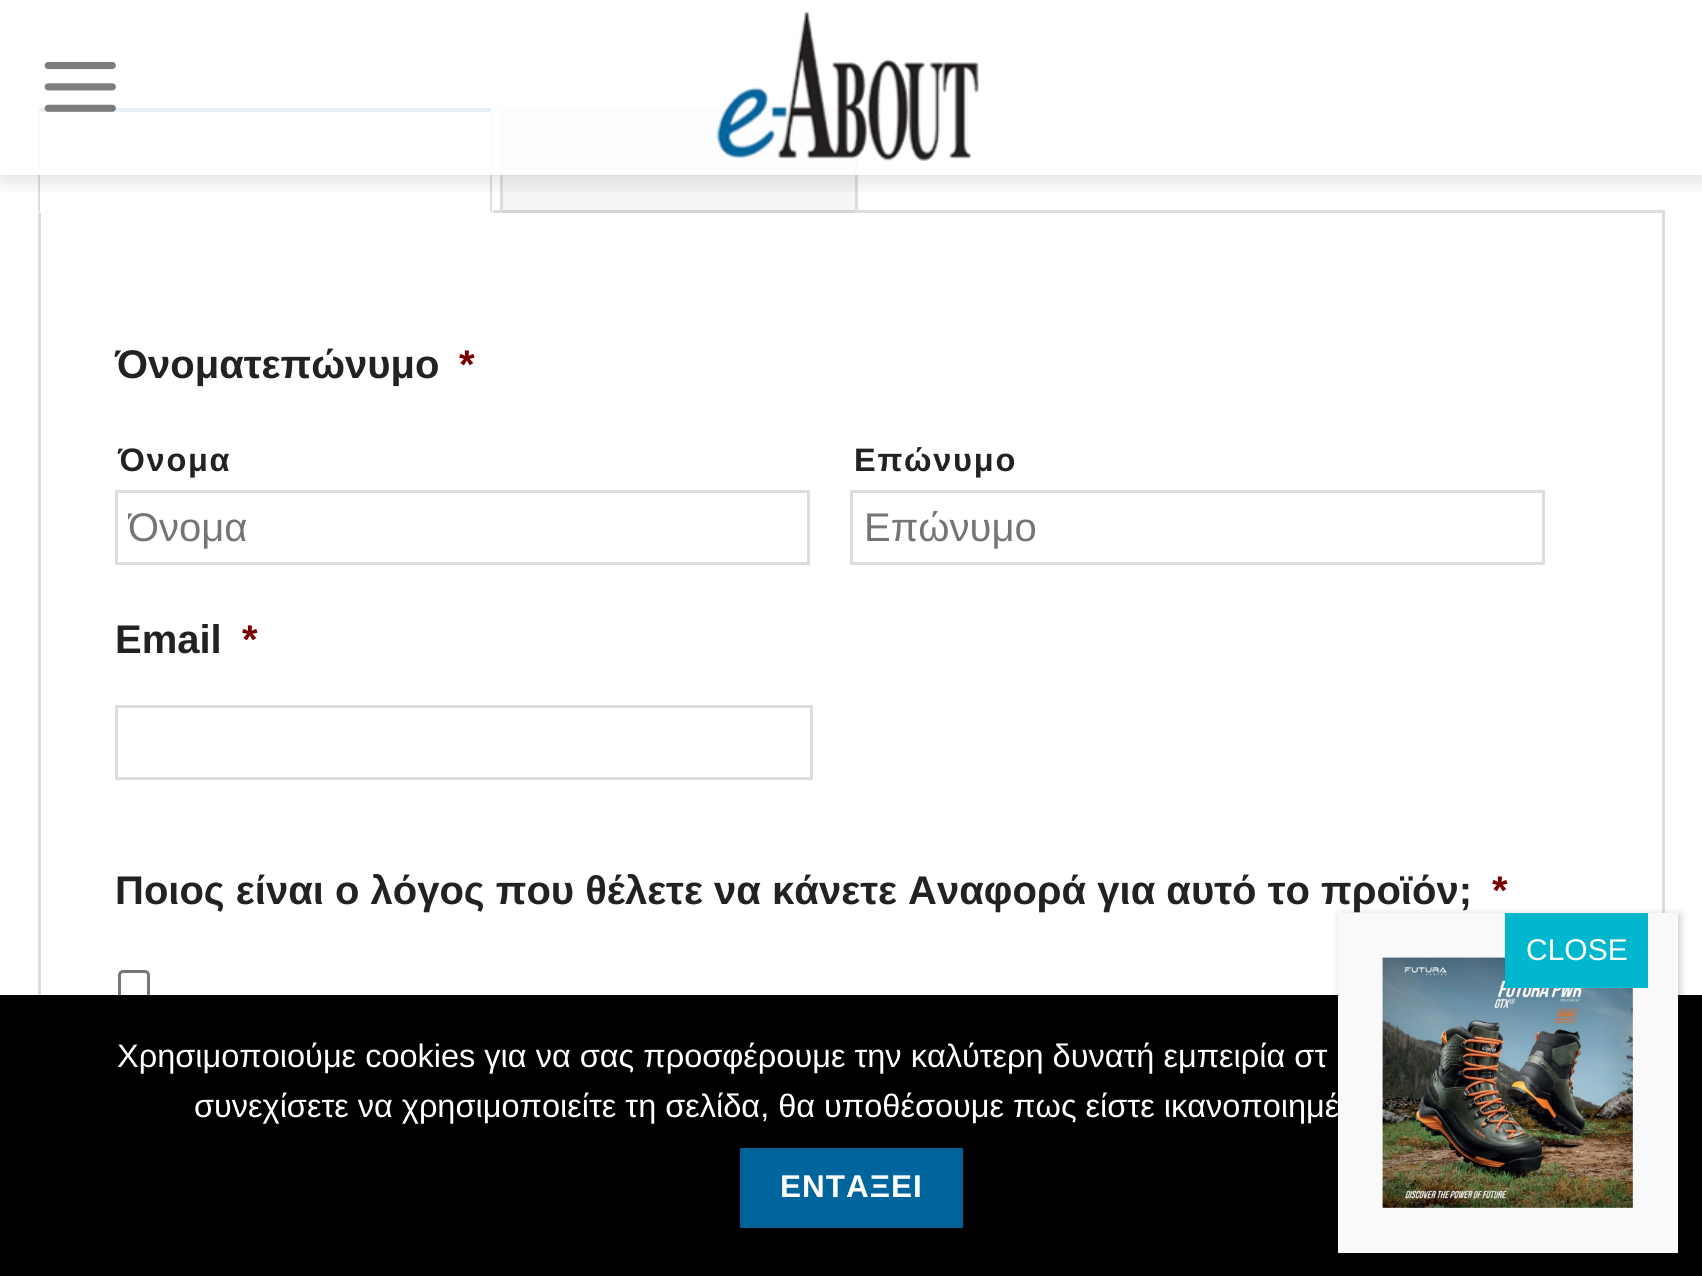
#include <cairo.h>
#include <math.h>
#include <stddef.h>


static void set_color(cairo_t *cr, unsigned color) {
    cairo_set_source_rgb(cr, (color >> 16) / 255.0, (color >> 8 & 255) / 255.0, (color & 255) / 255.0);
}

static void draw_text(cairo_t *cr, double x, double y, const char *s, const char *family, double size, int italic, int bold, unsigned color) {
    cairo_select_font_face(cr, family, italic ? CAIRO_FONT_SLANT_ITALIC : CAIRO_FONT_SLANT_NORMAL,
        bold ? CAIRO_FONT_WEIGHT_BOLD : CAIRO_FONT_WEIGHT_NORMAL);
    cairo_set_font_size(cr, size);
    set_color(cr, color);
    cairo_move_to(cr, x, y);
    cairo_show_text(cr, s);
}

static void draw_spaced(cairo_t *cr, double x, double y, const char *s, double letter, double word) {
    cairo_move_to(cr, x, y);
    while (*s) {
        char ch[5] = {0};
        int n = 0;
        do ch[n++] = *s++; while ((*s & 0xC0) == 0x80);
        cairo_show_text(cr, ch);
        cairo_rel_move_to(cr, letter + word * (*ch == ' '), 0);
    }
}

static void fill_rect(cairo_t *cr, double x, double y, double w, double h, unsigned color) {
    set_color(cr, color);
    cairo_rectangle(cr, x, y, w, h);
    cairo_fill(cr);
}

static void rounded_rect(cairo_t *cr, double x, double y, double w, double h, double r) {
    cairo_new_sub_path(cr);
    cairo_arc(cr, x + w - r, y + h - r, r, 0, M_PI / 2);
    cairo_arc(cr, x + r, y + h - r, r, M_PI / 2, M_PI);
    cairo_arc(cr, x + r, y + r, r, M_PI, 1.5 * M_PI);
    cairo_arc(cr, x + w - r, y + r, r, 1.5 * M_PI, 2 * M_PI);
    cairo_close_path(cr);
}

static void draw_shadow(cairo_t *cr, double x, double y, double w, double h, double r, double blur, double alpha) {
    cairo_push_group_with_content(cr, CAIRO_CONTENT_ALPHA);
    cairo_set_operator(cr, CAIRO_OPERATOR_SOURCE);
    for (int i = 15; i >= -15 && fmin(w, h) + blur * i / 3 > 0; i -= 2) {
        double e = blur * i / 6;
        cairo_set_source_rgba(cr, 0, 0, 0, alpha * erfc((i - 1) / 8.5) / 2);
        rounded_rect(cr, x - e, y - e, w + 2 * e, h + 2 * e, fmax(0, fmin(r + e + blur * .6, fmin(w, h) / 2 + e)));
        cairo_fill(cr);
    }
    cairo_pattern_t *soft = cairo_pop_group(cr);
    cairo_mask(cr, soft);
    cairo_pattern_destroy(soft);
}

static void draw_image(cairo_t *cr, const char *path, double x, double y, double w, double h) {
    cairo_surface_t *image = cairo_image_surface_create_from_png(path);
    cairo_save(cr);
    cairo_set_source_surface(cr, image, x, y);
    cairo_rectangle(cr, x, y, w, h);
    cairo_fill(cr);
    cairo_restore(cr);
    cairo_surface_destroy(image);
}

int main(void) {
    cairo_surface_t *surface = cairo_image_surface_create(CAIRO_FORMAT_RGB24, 1702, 1276);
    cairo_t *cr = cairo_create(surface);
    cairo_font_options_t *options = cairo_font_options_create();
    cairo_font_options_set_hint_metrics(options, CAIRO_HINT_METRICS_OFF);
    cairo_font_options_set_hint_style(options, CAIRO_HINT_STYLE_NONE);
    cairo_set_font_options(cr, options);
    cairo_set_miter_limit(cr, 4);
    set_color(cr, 0xFFFFFF);
    cairo_paint(cr);
    fill_rect(cr, 38, 30, 1627, 3, 0xECECEC);
    cairo_rectangle(cr, 39.5, 211.5, 1624, 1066);
    set_color(cr, 0xDDDDDD);
    cairo_set_line_width(cr, 3);
    cairo_stroke(cr);
    fill_rect(cr, 38, 210, 455, 3, 0xFFFFFF);
    set_color(cr, 0x00659C);
    cairo_new_path(cr);
    cairo_move_to(cr, 38, 108);
    cairo_line_to(cr, 492, 108);
    cairo_line_to(cr, 490, 112);
    cairo_line_to(cr, 40, 112);
    cairo_close_path(cr);
    cairo_fill(cr);
    set_color(cr, 0xDDDDDD);
    cairo_new_path(cr);
    cairo_move_to(cr, 492, 108);
    cairo_line_to(cr, 492, 212);
    cairo_line_to(cr, 490, 212);
    cairo_line_to(cr, 490, 112);
    cairo_close_path(cr);
    cairo_fill(cr);
    cairo_new_path(cr);
    cairo_move_to(cr, 38, 212);
    cairo_line_to(cr, 38, 108);
    cairo_line_to(cr, 40, 112);
    cairo_line_to(cr, 40, 212);
    cairo_close_path(cr);
    cairo_fill(cr);
    cairo_set_source_rgba(cr, 0, 0, 0, 0.04);
    cairo_rectangle(cr, 503, 113, 352, 100);
    cairo_fill(cr);
    fill_rect(cr, 500, 108, 358, 5, 0xDDDDDD);
    fill_rect(cr, 855, 108, 3, 105, 0xDDDDDD);
    fill_rect(cr, 500, 108, 3, 105, 0xDDDDDD);
    cairo_save(cr);
    cairo_rectangle(cr, 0, 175, 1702, 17);
    cairo_clip(cr);
    set_color(cr, 0x000000);
    draw_shadow(cr, 3, 3, 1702, 175, 0, 12.5, 0.15);
    cairo_restore(cr);
    cairo_set_source_rgba(cr, 1, 1, 1, 0.9);
    cairo_rectangle(cr, 38, 30, 1627, 145);
    cairo_fill(cr);
    draw_image(cr, "assets/img1.png", 44, 61, 72, 51);
    draw_image(cr, "assets/img2.png", 716, 11, 263, 150);
    draw_text(cr, 115, 378, "Όνοματεπώνυμο", "Liberation Sans", 40, 0, 1, 0x222222);
    draw_text(cr, 459, 378, "*", "Liberation Sans", 40, 0, 1, 0x790000);
    cairo_set_font_size(cr, 32.5);
    set_color(cr, 0x222222);
    draw_spaced(cr, 118, 471, "Όνομα", 1.75, 0);
    cairo_rectangle(cr, 116.5, 491.5, 692, 72);
    set_color(cr, 0xDDDDDD);
    cairo_stroke(cr);
    cairo_save(cr);
    cairo_rectangle(cr, 128, 505, 670, 45);
    cairo_clip(cr);
    draw_text(cr, 128, 541, "Όνομα", "Liberation Sans", 40, 0, 0, 0x757575);
    cairo_restore(cr);
    set_color(cr, 0x222222);
    draw_spaced(cr, 854, 471, "Επώνυμο", 1.75, 0);
    cairo_rectangle(cr, 851.5, 491.5, 692, 72);
    set_color(cr, 0xDDDDDD);
    cairo_stroke(cr);
    draw_text(cr, 864, 541, "Επώνυμο", "Liberation Sans", 40, 0, 0, 0x757575);
    draw_text(cr, 115, 653, "Email", "Liberation Sans", 40, 0, 1, 0x222222);
    draw_text(cr, 242, 653, "*", "Liberation Sans", 40, 0, 1, 0x790000);
    cairo_rectangle(cr, 116.5, 706.5, 695, 72);
    set_color(cr, 0xDDDDDD);
    cairo_stroke(cr);
    draw_text(cr, 115, 904, "Ποιος είναι ο λόγος που θέλετε να κάνετε Αναφορά για αυτό το προϊόν;", "Liberation Sans", 40, 0, 1, 0x222222);
    draw_text(cr, 1492, 904, "*", "Liberation Sans", 40, 0, 1, 0x790000);
    rounded_rect(cr, 119.5, 971.5, 29, 30, 3.5);
    set_color(cr, 0x767676);
    cairo_stroke(cr);
    fill_rect(cr, 0, 995, 1702, 281, 0x000000);
    set_color(cr, 0x020202);
    draw_shadow(cr, 1340, 915, 340, 340, 0, 4, 0.23);
    draw_text(cr, 194, 1117, "συνεχίσετε να χρησιμοποιείτε τη σελίδα, θα υποθέσουμε πως είστε ικανοποιημέ", "Liberation Sans", 32.5, 0, 0, 0xFFFFFF);
    fill_rect(cr, 1338, 913, 340, 340, 0xF9F9F9);
    draw_image(cr, "assets/img3.png", 1382, 957, 251, 251);
    fill_rect(cr, 1505, 913, 143, 75, 0x00B7CD);
    draw_text(cr, 1526, 960, "CLOSE", "Liberation Sans", 30, 0, 0, 0xFFFFFF);
    draw_text(cr, 117, 1067, "Χρησιμοποιούμε cookies για να σας προσφέρουμε την καλύτερη δυνατή εμπειρία στ", "Liberation Sans", 32.5, 0, 0, 0xFFFFFF);
    set_color(cr, 0x00659C);
    cairo_rectangle(cr, 741.5, 1149.5, 220, 77);
    cairo_fill_preserve(cr);
    set_color(cr, 0x006094);
    cairo_stroke(cr);
    cairo_select_font_face(cr, "Liberation Sans", CAIRO_FONT_SLANT_NORMAL, CAIRO_FONT_WEIGHT_BOLD);
    cairo_set_font_size(cr, 31.5);
    set_color(cr, 0xFFFFFF);
    draw_spaced(cr, 780, 1197, "ΕΝΤΑΞΕΙ", 1, 0);
    cairo_surface_write_to_png(surface, "output.png");
    cairo_font_options_destroy(options);
    cairo_destroy(cr);
    cairo_surface_destroy(surface);
    return 0;
}
